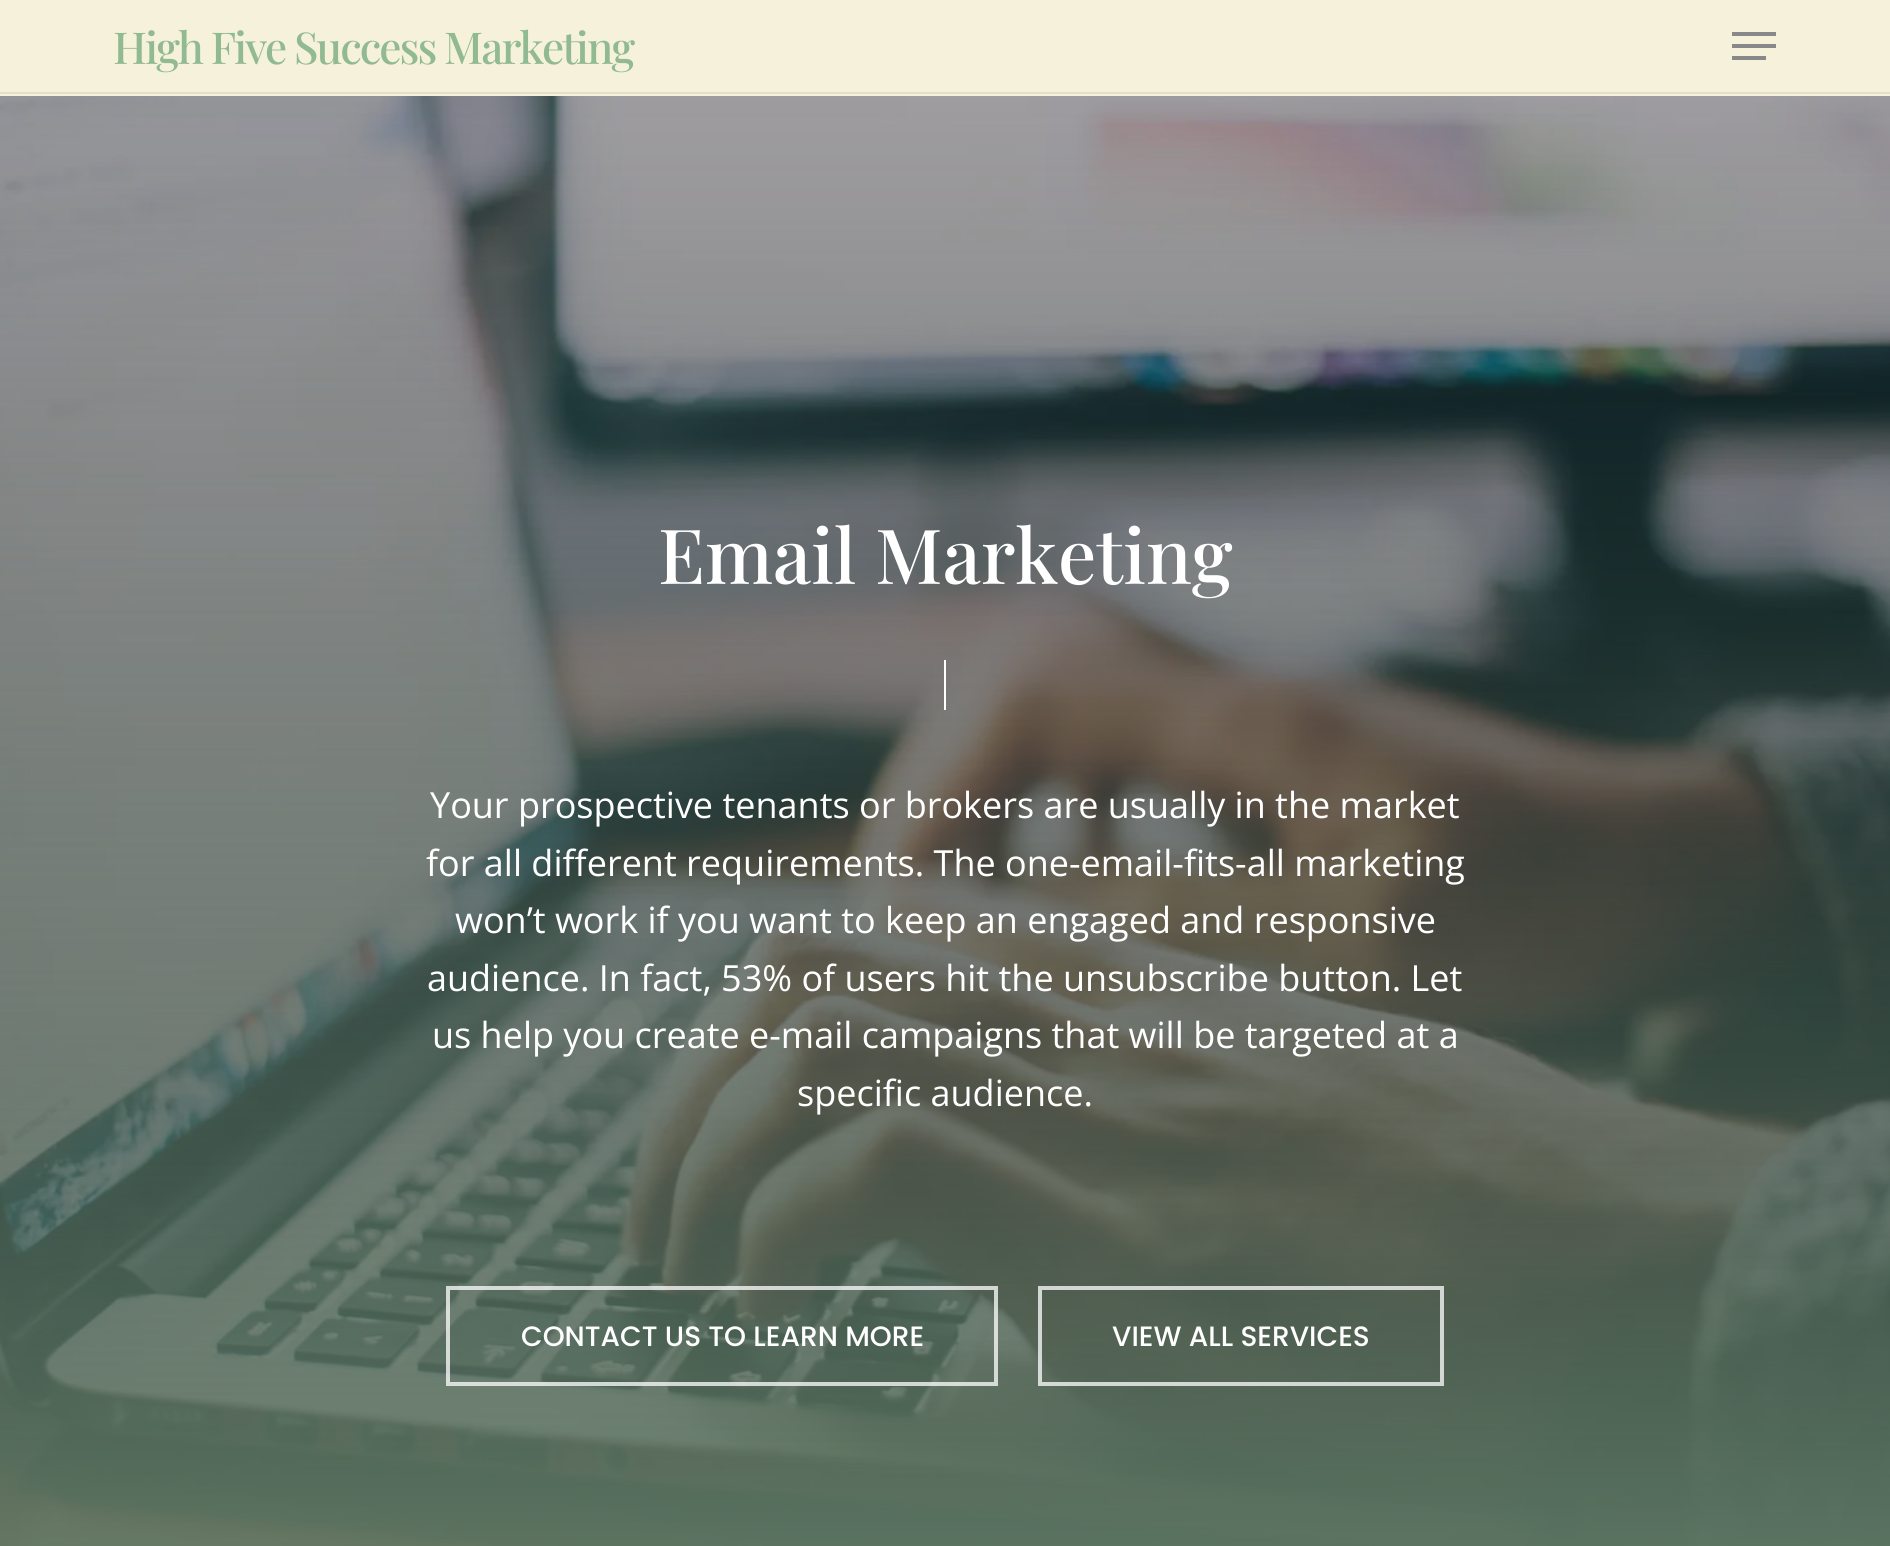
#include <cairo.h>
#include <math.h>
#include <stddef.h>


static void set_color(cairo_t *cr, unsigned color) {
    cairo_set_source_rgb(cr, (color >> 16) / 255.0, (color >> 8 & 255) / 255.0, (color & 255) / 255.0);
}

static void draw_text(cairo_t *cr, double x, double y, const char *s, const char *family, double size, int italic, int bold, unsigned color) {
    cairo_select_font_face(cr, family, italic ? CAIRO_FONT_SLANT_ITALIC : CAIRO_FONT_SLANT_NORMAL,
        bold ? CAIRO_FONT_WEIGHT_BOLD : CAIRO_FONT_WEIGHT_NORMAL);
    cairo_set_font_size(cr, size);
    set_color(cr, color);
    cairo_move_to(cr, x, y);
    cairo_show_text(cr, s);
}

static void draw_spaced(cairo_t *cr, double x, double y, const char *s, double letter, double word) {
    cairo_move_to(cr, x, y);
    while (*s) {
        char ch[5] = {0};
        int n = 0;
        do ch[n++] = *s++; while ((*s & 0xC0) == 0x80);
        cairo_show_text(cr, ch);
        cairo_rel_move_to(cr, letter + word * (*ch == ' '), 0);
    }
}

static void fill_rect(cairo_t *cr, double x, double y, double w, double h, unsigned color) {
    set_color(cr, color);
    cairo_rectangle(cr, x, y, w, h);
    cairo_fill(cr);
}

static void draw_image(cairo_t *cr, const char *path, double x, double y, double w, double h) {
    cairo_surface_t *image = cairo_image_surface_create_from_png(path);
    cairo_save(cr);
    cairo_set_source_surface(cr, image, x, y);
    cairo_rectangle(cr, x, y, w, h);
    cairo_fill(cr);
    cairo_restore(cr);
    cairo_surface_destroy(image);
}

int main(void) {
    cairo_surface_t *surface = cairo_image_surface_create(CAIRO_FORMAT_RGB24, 1890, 1546);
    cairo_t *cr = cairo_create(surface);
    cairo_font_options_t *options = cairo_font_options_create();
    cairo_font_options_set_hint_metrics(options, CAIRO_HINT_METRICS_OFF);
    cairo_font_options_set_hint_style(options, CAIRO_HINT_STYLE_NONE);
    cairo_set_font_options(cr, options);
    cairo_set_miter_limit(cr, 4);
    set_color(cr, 0xF5F1DA);
    cairo_paint(cr);
    fill_rect(cr, 0, 92, 1890, 2, 0xE1DEC9);
    cairo_select_font_face(cr, "Playfair Display Medium", CAIRO_FONT_SLANT_NORMAL, CAIRO_FONT_WEIGHT_NORMAL);
    cairo_set_font_size(cr, 44);
    set_color(cr, 0x92BA92);
    draw_spaced(cr, 113, 64, "High Five Success Marketing", -2, 0);
    fill_rect(cr, 1732, 32, 44, 4, 0x888888);
    fill_rect(cr, 1732, 56, 34, 4, 0x888888);
    fill_rect(cr, 1732, 44, 44, 4, 0x888888);
    draw_image(cr, "assets/img1.png", 0, 96, 1890, 1450);
    draw_text(cr, 658, 584, "Email Marketing", "Playfair Display Medium", 76, 0, 0, 0xFFFFFF);
    fill_rect(cr, 944, 660, 2, 50, 0xFFFFFF);
    draw_text(cr, 430, 818, "Your prospective tenants or brokers are usually in the market", "Open Sans", 36, 0, 0, 0xFFFFFF);
    draw_text(cr, 426, 876, "for all different requirements. The one-email-fits-all marketing", "Open Sans", 36, 0, 0, 0xFFFFFF);
    draw_text(cr, 455, 933, "won’t work if you want to keep an engaged and responsive", "Open Sans", 36, 0, 0, 0xFFFFFF);
    draw_text(cr, 427, 991, "audience. In fact, 53% of users hit the unsubscribe button. Let", "Open Sans", 36, 0, 0, 0xFFFFFF);
    draw_text(cr, 432, 1048, "us help you create e-mail campaigns that will be targeted at a", "Open Sans", 36, 0, 0, 0xFFFFFF);
    draw_text(cr, 797, 1106, "specific audience.", "Open Sans", 36, 0, 0, 0xFFFFFF);
    cairo_rectangle(cr, 448, 1288, 548, 96);
    cairo_set_source_rgba(cr, 1, 1, 1, 0.75);
    cairo_set_line_width(cr, 4);
    cairo_stroke(cr);
    draw_text(cr, 521, 1346, "CONTACT US TO LEARN MORE", "Poppins Medium", 28, 0, 0, 0xFFFFFF);
    cairo_rectangle(cr, 1040, 1288, 402, 96);
    cairo_set_source_rgba(cr, 1, 1, 1, 0.75);
    cairo_stroke(cr);
    draw_text(cr, 1112, 1346, "VIEW ALL SERVICES", "Poppins Medium", 28, 0, 0, 0xFFFFFF);
    cairo_surface_write_to_png(surface, "output.png");
    cairo_font_options_destroy(options);
    cairo_destroy(cr);
    cairo_surface_destroy(surface);
    return 0;
}
